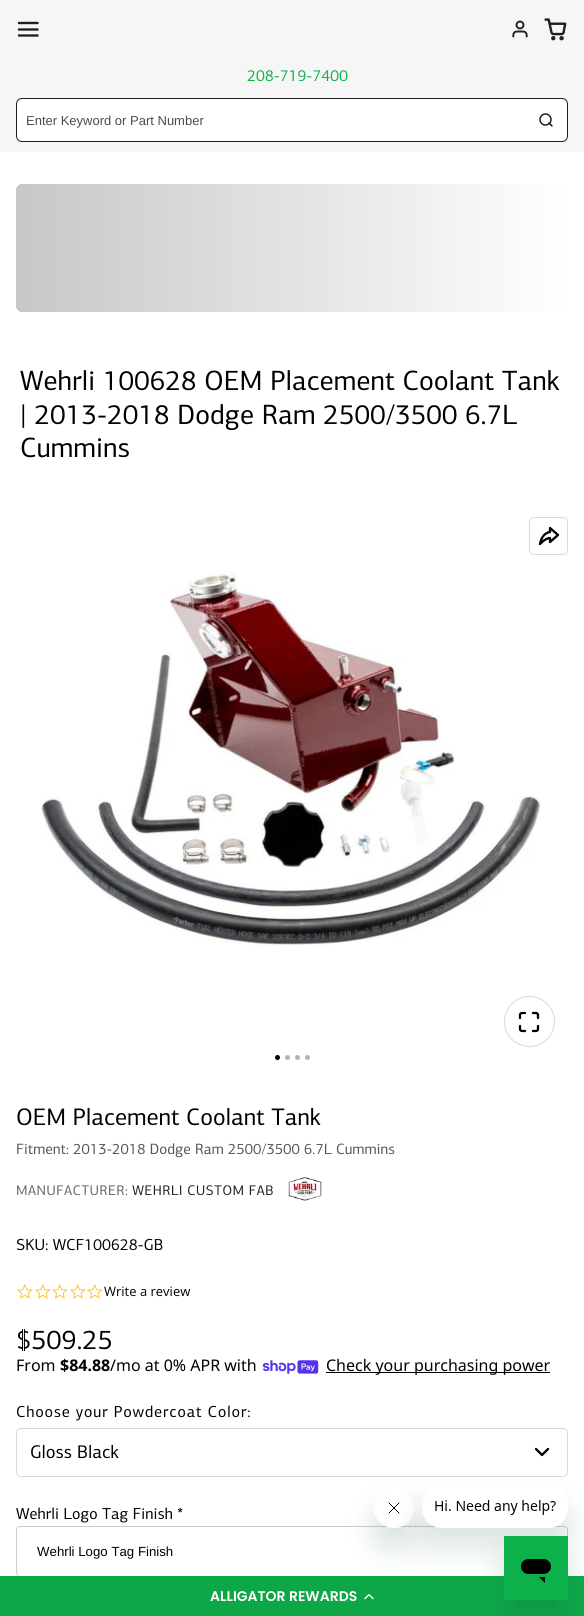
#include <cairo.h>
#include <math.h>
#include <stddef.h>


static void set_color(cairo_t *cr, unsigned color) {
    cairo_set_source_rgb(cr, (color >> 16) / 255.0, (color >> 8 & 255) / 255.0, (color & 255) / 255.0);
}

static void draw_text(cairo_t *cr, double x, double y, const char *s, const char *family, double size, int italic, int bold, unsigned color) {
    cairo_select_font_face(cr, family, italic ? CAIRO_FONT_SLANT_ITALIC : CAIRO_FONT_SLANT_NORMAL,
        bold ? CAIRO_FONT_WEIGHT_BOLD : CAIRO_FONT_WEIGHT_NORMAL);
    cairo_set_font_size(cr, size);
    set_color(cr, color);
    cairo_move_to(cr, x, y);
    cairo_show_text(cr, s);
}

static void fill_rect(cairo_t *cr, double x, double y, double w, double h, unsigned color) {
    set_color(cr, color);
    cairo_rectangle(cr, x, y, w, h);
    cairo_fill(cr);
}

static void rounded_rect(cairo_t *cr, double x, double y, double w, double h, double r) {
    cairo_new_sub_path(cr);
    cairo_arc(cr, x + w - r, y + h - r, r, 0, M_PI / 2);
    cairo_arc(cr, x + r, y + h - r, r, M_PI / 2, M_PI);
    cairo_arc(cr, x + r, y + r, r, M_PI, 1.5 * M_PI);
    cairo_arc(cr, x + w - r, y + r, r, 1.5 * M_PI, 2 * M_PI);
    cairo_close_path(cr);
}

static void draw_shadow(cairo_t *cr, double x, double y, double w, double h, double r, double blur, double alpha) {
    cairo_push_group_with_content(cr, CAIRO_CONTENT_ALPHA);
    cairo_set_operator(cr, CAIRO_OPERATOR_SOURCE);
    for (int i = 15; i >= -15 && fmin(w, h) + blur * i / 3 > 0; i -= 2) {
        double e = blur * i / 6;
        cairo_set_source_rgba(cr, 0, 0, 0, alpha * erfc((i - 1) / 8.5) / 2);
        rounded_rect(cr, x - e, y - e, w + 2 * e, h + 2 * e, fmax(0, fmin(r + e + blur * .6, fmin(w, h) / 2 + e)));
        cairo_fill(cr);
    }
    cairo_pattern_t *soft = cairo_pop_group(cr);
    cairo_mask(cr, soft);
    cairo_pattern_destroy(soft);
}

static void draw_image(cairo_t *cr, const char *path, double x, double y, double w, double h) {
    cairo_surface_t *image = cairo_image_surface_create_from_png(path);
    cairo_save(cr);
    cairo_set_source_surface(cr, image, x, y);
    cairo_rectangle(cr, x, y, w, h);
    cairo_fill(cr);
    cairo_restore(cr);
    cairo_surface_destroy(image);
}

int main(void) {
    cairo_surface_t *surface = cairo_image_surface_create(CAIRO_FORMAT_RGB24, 584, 1616);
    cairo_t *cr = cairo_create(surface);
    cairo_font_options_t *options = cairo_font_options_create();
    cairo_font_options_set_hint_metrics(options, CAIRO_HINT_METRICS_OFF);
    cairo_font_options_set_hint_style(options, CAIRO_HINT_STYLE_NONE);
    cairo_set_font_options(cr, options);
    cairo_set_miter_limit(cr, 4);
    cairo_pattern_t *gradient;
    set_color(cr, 0xFFFFFF);
    cairo_paint(cr);
    fill_rect(cr, 0, 0, 584, 152, 0xF6F6F6);
    cairo_new_path(cr);
    cairo_move_to(cr, 19, 29.5);
    cairo_line_to(cr, 37.5, 29.5);
    cairo_move_to(cr, 19, 23);
    cairo_line_to(cr, 37.5, 23);
    cairo_move_to(cr, 19, 35.5);
    cairo_line_to(cr, 37.5, 35.5);
    set_color(cr, 0x1F1F1F);
    cairo_set_line_width(cr, 2.4);
    cairo_set_line_cap(cr, CAIRO_LINE_CAP_ROUND);
    cairo_set_line_join(cr, CAIRO_LINE_JOIN_ROUND);
    cairo_stroke(cr);
    draw_image(cr, "assets/img1.png", 512, 20, 16, 18);
    draw_image(cr, "assets/img2.png", 544, 18, 23, 23);
    draw_image(cr, "assets/img3.png", 247, 70, 101, 12);
    set_color(cr, 0xFFFFFF);
    rounded_rect(cr, 16.5, 98.5, 551, 43, 5.5);
    cairo_fill_preserve(cr);
    set_color(cr, 0x1F1F1F);
    cairo_set_line_width(cr, 1);
    cairo_set_line_cap(cr, CAIRO_LINE_CAP_BUTT);
    cairo_set_line_join(cr, CAIRO_LINE_JOIN_MITER);
    cairo_stroke(cr);
    draw_text(cr, 26, 125, "Enter Keyword or Part Number", "Liberation Sans", 13, 0, 0, 0x4C4C4C);
    cairo_new_path(cr);
    cairo_move_to(cr, 19.5, 115.5);
    cairo_curve_to(cr, 22, 113, 26, 113, 28.5, 115.5);
    cairo_move_to(cr, 19.5, 115.5);
    cairo_curve_to(cr, 22, 113, 26, 113, 28.5, 115.5);
    cairo_move_to(cr, 19.5, 115.5);
    cairo_curve_to(cr, 22, 113, 26, 113, 28.5, 115.5);
    set_color(cr, 0xFFFFFF);
    cairo_set_line_width(cr, 3);
    cairo_stroke(cr);
    cairo_arc(cr, 545.5, 119.5, 5.5, 0, 2 * M_PI);
    set_color(cr, 0x1F1F1F);
    cairo_set_line_width(cr, 1.5);
    cairo_stroke(cr);
    cairo_new_path(cr);
    cairo_move_to(cr, 552, 126);
    cairo_line_to(cr, 549, 123);
    cairo_set_line_cap(cr, CAIRO_LINE_CAP_ROUND);
    cairo_set_line_join(cr, CAIRO_LINE_JOIN_ROUND);
    cairo_stroke(cr);
    gradient = cairo_pattern_create_linear(-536, 248, 568, 248);
    cairo_pattern_add_color_stop_rgba(gradient, 0, 1, 1, 1, 1);
    cairo_pattern_add_color_stop_rgba(gradient, 0.5, 0.78, 0.78, 0.78, 1);
    cairo_pattern_add_color_stop_rgba(gradient, 1, 1, 1, 1, 1);
    cairo_set_source(cr, gradient);
    cairo_pattern_destroy(gradient);
    rounded_rect(cr, 16, 184, 552, 128, 6);
    cairo_fill(cr);
    draw_image(cr, "assets/img4.png", 20, 370, 540, 21);
    draw_image(cr, "assets/img5.png", 22, 404, 495, 27);
    draw_image(cr, "assets/img6.png", 21, 437, 108, 21);
    rounded_rect(cr, 529.5, 517.5, 38, 37, 4.5);
    set_color(cr, 0xD9D9D9);
    cairo_set_line_width(cr, 1);
    cairo_set_line_cap(cr, CAIRO_LINE_CAP_BUTT);
    cairo_set_line_join(cr, CAIRO_LINE_JOIN_MITER);
    cairo_stroke(cr);
    cairo_new_path(cr);
    cairo_move_to(cr, 550, 528);
    cairo_line_to(cr, 550, 532);
    cairo_curve_to(cr, 543.5, 533, 541, 539, 540, 544);
    cairo_curve_to(cr, 540, 544, 545.5, 538, 550, 538);
    cairo_line_to(cr, 550, 542);
    cairo_line_to(cr, 558, 535);
    cairo_close_path(cr);
    set_color(cr, 0x000000);
    cairo_set_line_width(cr, 2.3);
    cairo_set_line_cap(cr, CAIRO_LINE_CAP_ROUND);
    cairo_set_line_join(cr, CAIRO_LINE_JOIN_ROUND);
    cairo_stroke(cr);
    draw_image(cr, "assets/img7.png", 41, 572, 501, 374);
    cairo_arc(cr, 277.5, 1057.5, 2.5, 0, 2 * M_PI);
    cairo_fill(cr);
    set_color(cr, 0xB3B3B3);
    cairo_arc(cr, 287.5, 1057.5, 2.5, 0, 2 * M_PI);
    cairo_fill(cr);
    cairo_arc(cr, 297.5, 1057.5, 2.5, 0, 2 * M_PI);
    cairo_fill(cr);
    cairo_arc(cr, 307.5, 1057.5, 2.5, 0, 2 * M_PI);
    cairo_fill(cr);
    cairo_arc(cr, 529.5, 1021.5, 25, 0, 2 * M_PI);
    set_color(cr, 0xD9D9D9);
    cairo_set_line_width(cr, 1);
    cairo_set_line_cap(cr, CAIRO_LINE_CAP_BUTT);
    cairo_set_line_join(cr, CAIRO_LINE_JOIN_MITER);
    cairo_stroke(cr);
    draw_image(cr, "assets/img8.png", 518, 1011, 22, 22);
    draw_image(cr, "assets/img9.png", 17, 1107, 304, 19);
    draw_image(cr, "assets/img10.png", 17, 1143, 52, 12);
    draw_image(cr, "assets/img11.png", 73, 1143, 322, 15);
    draw_image(cr, "assets/img12.png", 17, 1185, 111, 11);
    draw_image(cr, "assets/img13.png", 132, 1185, 141, 11);
    draw_image(cr, "assets/img14.png", 288, 1177, 34, 24);
    draw_image(cr, "assets/img15.png", 16, 1238, 147, 13);
    draw_image(cr, "assets/img16.png", 17, 1284, 16, 15);
    draw_image(cr, "assets/img16.png", 35, 1284, 16, 15);
    draw_image(cr, "assets/img16.png", 52, 1284, 16, 15);
    draw_image(cr, "assets/img16.png", 70, 1284, 16, 15);
    draw_image(cr, "assets/img16.png", 87, 1284, 16, 15);
    draw_text(cr, 104, 1296, "Write a review", "Open Sans", 13, 0, 0, 0x000000);
    draw_image(cr, "assets/img17.png", 17, 1329, 94, 23);
    draw_text(cr, 16, 1371, "From", "Noto Sans", 16, 0, 0, 0x000000);
    draw_text(cr, 60, 1371, "$84.88", "Noto Sans", 16, 0, 1, 0x000000);
    draw_text(cr, 110, 1371, "/mo at 0% APR with", "Noto Sans", 16, 0, 0, 0x000000);
    draw_image(cr, "assets/img18.png", 262, 1360, 57, 14);
    fill_rect(cr, 326, 1372, 224, 1, 0x000000);
    draw_text(cr, 326, 1371, "Check your purchasing power", "Noto Sans", 16, 0, 0, 0x000000);
    draw_image(cr, "assets/img19.png", 17, 1405, 233, 16);
    rounded_rect(cr, 16.5, 1428.5, 551, 48, 4.5);
    set_color(cr, 0xD9D9D9);
    cairo_stroke(cr);
    draw_image(cr, "assets/img20.png", 31, 1444, 88, 15);
    cairo_new_path(cr);
    cairo_move_to(cr, 536, 1449);
    cairo_line_to(cr, 542, 1455);
    cairo_line_to(cr, 548, 1449);
    set_color(cr, 0x000000);
    cairo_set_line_width(cr, 2.3);
    cairo_set_line_cap(cr, CAIRO_LINE_CAP_ROUND);
    cairo_set_line_join(cr, CAIRO_LINE_JOIN_ROUND);
    cairo_stroke(cr);
    draw_image(cr, "assets/img21.png", 16, 1507, 156, 16);
    draw_image(cr, "assets/img22.png", 177, 1507, 6, 6);
    rounded_rect(cr, 16.5, 1526.5, 551, 50, 3.5);
    set_color(cr, 0xCCCCCC);
    cairo_set_line_width(cr, 1);
    cairo_set_line_cap(cr, CAIRO_LINE_CAP_BUTT);
    cairo_set_line_join(cr, CAIRO_LINE_JOIN_MITER);
    cairo_stroke(cr);
    draw_text(cr, 37, 1556, "Wehrli Logo Tag Finish", "Liberation Sans", 13.25, 0, 0, 0x000000);
    fill_rect(cr, 0, 1576, 584, 40, 0x0DA747);
    draw_text(cr, 210, 1601, "ALLIGATOR REWARDS", "Poppins SemiBold", 14, 0, 0, 0xFFFFFF);
    draw_image(cr, "assets/img23.png", 364, 1594, 10, 6);
    cairo_save(cr);
    cairo_set_fill_rule(cr, CAIRO_FILL_RULE_EVEN_ODD);
    cairo_new_path(cr);
    cairo_move_to(cr, 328, 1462);
    cairo_line_to(cr, 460, 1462);
    cairo_line_to(cr, 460, 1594);
    cairo_line_to(cr, 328, 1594);
    cairo_close_path(cr);
    cairo_move_to(cr, 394, 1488);
    cairo_curve_to(cr, 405, 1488, 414, 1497, 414, 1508);
    cairo_curve_to(cr, 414, 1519, 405, 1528, 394, 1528);
    cairo_curve_to(cr, 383, 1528, 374, 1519, 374, 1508);
    cairo_curve_to(cr, 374, 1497, 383, 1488, 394, 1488);
    cairo_close_path(cr);
    cairo_clip(cr);
    set_color(cr, 0x17494D);
    draw_shadow(cr, 374, 1508, 40, 40, 20, 15, 0.15);
    cairo_restore(cr);
    draw_image(cr, "assets/img25.png", 386, 1502, 16, 25);
    cairo_save(cr);
    cairo_set_fill_rule(cr, CAIRO_FILL_RULE_EVEN_ODD);
    cairo_new_path(cr);
    cairo_move_to(cr, 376, 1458);
    cairo_line_to(cr, 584, 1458);
    cairo_line_to(cr, 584, 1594);
    cairo_line_to(cr, 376, 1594);
    cairo_close_path(cr);
    cairo_move_to(cr, 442, 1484);
    cairo_line_to(cr, 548, 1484);
    cairo_curve_to(cr, 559, 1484, 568, 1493, 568, 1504);
    cairo_line_to(cr, 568, 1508);
    cairo_curve_to(cr, 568, 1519, 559, 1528, 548, 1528);
    cairo_line_to(cr, 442, 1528);
    cairo_curve_to(cr, 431, 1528, 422, 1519, 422, 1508);
    cairo_line_to(cr, 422, 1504);
    cairo_curve_to(cr, 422, 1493, 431, 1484, 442, 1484);
    cairo_close_path(cr);
    cairo_clip(cr);
    set_color(cr, 0x17494D);
    draw_shadow(cr, 422, 1504, 146, 44, 20, 15, 0.15);
    cairo_restore(cr);
    draw_image(cr, "assets/img24.png", 423, 1500, 139, 28);
    set_color(cr, 0x17494D);
    draw_shadow(cr, 504, 1556, 64, 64, 0, 15, 0.15);
    draw_image(cr, "assets/img26.png", 504, 1536, 64, 64);
    cairo_surface_write_to_png(surface, "output.png");
    cairo_font_options_destroy(options);
    cairo_destroy(cr);
    cairo_surface_destroy(surface);
    return 0;
}
